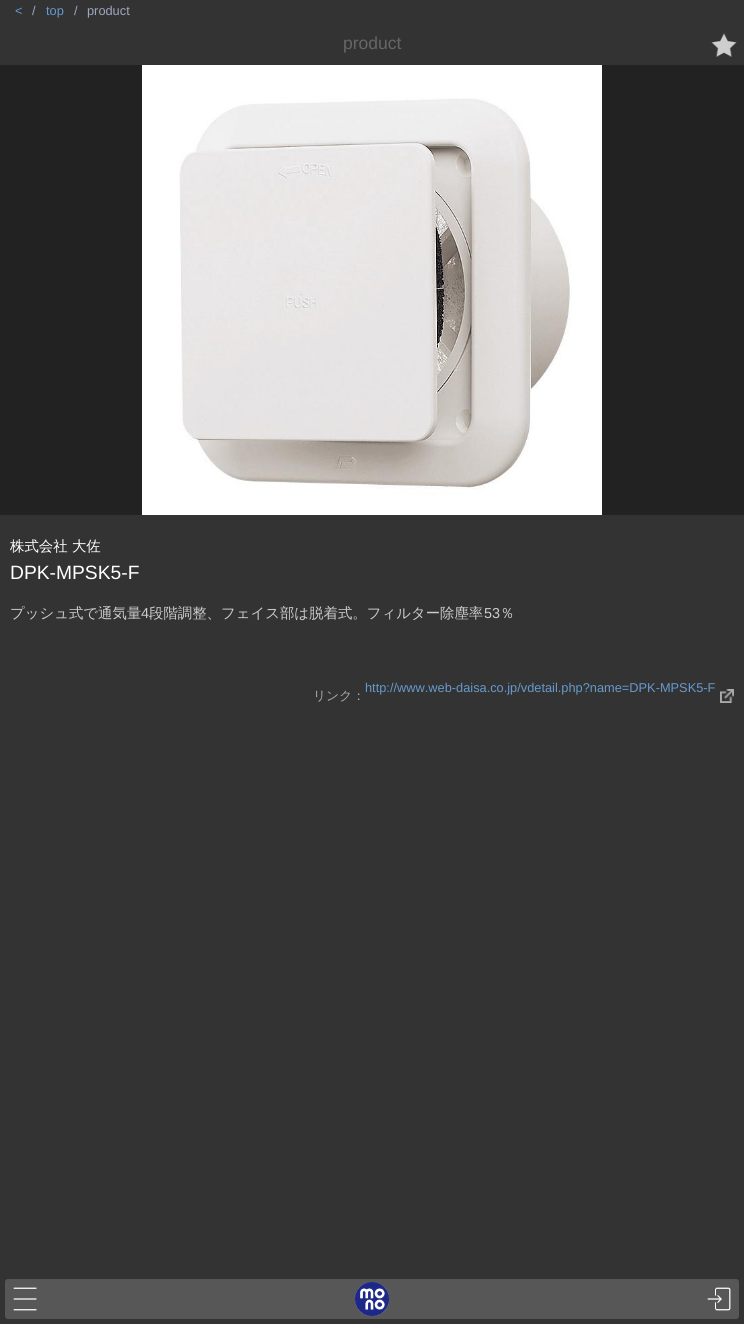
#include <cairo.h>
#include <math.h>
#include <stddef.h>


static void set_color(cairo_t *cr, unsigned color) {
    cairo_set_source_rgb(cr, (color >> 16) / 255.0, (color >> 8 & 255) / 255.0, (color & 255) / 255.0);
}

static void draw_text(cairo_t *cr, double x, double y, const char *s, const char *family, double size, int italic, int bold, unsigned color) {
    cairo_select_font_face(cr, family, italic ? CAIRO_FONT_SLANT_ITALIC : CAIRO_FONT_SLANT_NORMAL,
        bold ? CAIRO_FONT_WEIGHT_BOLD : CAIRO_FONT_WEIGHT_NORMAL);
    cairo_set_font_size(cr, size);
    set_color(cr, color);
    cairo_move_to(cr, x, y);
    cairo_show_text(cr, s);
}

static void fill_rect(cairo_t *cr, double x, double y, double w, double h, unsigned color) {
    set_color(cr, color);
    cairo_rectangle(cr, x, y, w, h);
    cairo_fill(cr);
}

static void rounded_rect(cairo_t *cr, double x, double y, double w, double h, double r) {
    cairo_new_sub_path(cr);
    cairo_arc(cr, x + w - r, y + h - r, r, 0, M_PI / 2);
    cairo_arc(cr, x + r, y + h - r, r, M_PI / 2, M_PI);
    cairo_arc(cr, x + r, y + r, r, M_PI, 1.5 * M_PI);
    cairo_arc(cr, x + w - r, y + r, r, 1.5 * M_PI, 2 * M_PI);
    cairo_close_path(cr);
}

static void draw_image(cairo_t *cr, const char *path, double x, double y, double w, double h) {
    cairo_surface_t *image = cairo_image_surface_create_from_png(path);
    cairo_save(cr);
    cairo_set_source_surface(cr, image, x, y);
    cairo_rectangle(cr, x, y, w, h);
    cairo_fill(cr);
    cairo_restore(cr);
    cairo_surface_destroy(image);
}

int main(void) {
    cairo_surface_t *surface = cairo_image_surface_create(CAIRO_FORMAT_RGB24, 744, 1324);
    cairo_t *cr = cairo_create(surface);
    cairo_font_options_t *options = cairo_font_options_create();
    cairo_font_options_set_hint_metrics(options, CAIRO_HINT_METRICS_OFF);
    cairo_font_options_set_hint_style(options, CAIRO_HINT_STYLE_NONE);
    cairo_set_font_options(cr, options);
    cairo_set_miter_limit(cr, 4);
    set_color(cr, 0x333333);
    cairo_paint(cr);
    draw_text(cr, 15, 15, "<", "Liberation Sans", 12.8, 0, 0, 0x6699CC);
    draw_text(cr, 32, 15, "/", "Liberation Sans", 12.8, 0, 0, 0x9FA6BE);
    draw_text(cr, 46, 15, "top", "Liberation Sans", 12.8, 0, 0, 0x6699CC);
    draw_text(cr, 74, 15, "/", "Liberation Sans", 12.8, 0, 0, 0x9FA6BE);
    draw_text(cr, 87, 15, "product", "Liberation Sans", 12.8, 0, 0, 0x9FA6BE);
    draw_text(cr, 343, 49, "product", "Liberation Sans", 17.5, 0, 0, 0x666666);
    draw_image(cr, "assets/img1.png", 711, 33, 26, 24);
    fill_rect(cr, 0, 65, 744, 450, 0x222222);
    draw_image(cr, "assets/img2.png", 142, 65, 460, 450);
    draw_text(cr, 10, 551, "株式会社 大佐", "WenQuanYi Zen Hei Medium", 14.4, 0, 0, 0xFFFFFF);
    draw_text(cr, 10, 579, "DPK-MPSK5-F", "Liberation Sans", 19.25, 0, 0, 0xFFFFFF);
    draw_text(cr, 10, 618, "プッシュ式で通気量", "WenQuanYi Zen Hei Medium", 14.4, 0, 0, 0xCCCCCC);
    draw_text(cr, 141, 618, "4", "Liberation Sans", 14.4, 0, 0, 0xCCCCCC);
    draw_text(cr, 149, 618, "段階調整、フェイス部は脱着式。フィルター除塵率", "WenQuanYi Zen Hei Medium", 14.4, 0, 0, 0xCCCCCC);
    draw_text(cr, 484, 618, "53", "Liberation Sans", 14.4, 0, 0, 0xCCCCCC);
    draw_text(cr, 500, 618, "％", "WenQuanYi Zen Hei Medium", 14.4, 0, 0, 0xCCCCCC);
    draw_text(cr, 313, 700, "リンク：", "WenQuanYi Zen Hei Medium", 12.8, 0, 0, 0xAAAAAA);
    draw_text(cr, 365, 692, "http://www.web-daisa.co.jp/vdetail.php?name=DPK-MPSK5-F", "Liberation Sans", 12.8, 0, 0, 0x6699CC);
    draw_image(cr, "assets/img3.png", 720, 689, 14, 14);
    set_color(cr, 0x575757);
    rounded_rect(cr, 5, 1279, 734, 40, 3);
    cairo_fill(cr);
    draw_image(cr, "assets/img4.png", 13, 1287, 24, 24);
    draw_image(cr, "assets/img5.png", 355, 1282, 34, 34);
    draw_image(cr, "assets/img6.png", 707, 1287, 24, 24);
    cairo_surface_write_to_png(surface, "output.png");
    cairo_font_options_destroy(options);
    cairo_destroy(cr);
    cairo_surface_destroy(surface);
    return 0;
}
